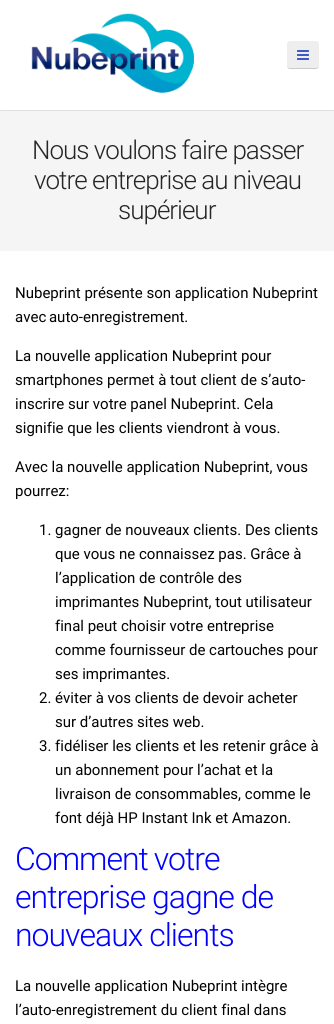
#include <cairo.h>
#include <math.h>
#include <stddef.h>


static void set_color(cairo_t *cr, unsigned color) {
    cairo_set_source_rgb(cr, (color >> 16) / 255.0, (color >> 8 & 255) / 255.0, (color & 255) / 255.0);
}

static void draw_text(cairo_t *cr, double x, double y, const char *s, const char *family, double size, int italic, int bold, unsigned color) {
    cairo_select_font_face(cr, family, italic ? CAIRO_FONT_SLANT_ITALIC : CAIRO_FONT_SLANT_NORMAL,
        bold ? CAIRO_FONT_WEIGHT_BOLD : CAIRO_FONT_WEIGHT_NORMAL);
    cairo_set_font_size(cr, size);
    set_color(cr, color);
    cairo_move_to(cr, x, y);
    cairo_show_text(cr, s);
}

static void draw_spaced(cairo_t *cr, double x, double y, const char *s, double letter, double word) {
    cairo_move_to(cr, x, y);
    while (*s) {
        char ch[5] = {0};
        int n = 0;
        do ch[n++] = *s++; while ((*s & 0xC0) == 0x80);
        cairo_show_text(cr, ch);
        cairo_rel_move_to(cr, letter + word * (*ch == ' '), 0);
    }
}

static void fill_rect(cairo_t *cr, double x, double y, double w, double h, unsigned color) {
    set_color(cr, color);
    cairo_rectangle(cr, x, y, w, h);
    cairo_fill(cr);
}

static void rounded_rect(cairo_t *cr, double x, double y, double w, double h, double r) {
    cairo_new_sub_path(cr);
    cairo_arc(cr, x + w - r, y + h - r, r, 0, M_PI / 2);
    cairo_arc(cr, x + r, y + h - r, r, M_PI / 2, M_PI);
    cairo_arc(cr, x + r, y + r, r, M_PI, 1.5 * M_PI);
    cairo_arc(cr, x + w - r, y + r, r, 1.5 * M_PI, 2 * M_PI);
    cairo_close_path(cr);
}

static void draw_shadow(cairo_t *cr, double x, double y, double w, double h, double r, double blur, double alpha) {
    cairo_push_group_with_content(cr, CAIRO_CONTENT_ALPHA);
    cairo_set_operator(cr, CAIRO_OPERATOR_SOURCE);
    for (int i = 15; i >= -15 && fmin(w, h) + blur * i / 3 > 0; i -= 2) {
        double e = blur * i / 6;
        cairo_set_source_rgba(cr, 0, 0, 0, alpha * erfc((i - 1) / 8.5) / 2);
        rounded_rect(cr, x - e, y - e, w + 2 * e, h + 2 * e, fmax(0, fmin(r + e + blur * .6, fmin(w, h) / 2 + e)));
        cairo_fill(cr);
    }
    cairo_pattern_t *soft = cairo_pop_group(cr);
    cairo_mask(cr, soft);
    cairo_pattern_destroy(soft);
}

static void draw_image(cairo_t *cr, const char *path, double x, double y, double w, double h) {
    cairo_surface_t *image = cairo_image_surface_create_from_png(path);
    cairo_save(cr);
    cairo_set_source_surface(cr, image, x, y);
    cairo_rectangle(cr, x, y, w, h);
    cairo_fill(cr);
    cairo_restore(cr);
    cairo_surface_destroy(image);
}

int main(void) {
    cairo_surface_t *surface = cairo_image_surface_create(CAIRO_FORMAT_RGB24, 334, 1024);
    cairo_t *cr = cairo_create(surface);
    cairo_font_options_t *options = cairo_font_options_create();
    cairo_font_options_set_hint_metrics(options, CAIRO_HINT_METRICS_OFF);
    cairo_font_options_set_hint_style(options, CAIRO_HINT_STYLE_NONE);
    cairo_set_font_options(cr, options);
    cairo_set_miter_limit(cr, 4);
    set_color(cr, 0xFFFFFF);
    cairo_paint(cr);
    fill_rect(cr, 0, 110, 334, 141, 0xF5F5F5);
    cairo_save(cr);
    cairo_rectangle(cr, 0, 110, 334, 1);
    cairo_clip(cr);
    set_color(cr, 0x000000);
    draw_shadow(cr, 0, 1, 334, 110, 0, 0.5, 0.1);
    cairo_restore(cr);
    draw_image(cr, "assets/img1.png", 31, 13, 163, 80);
    set_color(cr, 0xEEEEEE);
    rounded_rect(cr, 287, 41, 32, 28, 3);
    cairo_fill(cr);
    cairo_set_source_rgba(cr, 0, 0, 0, 0.15);
    cairo_new_path(cr);
    cairo_move_to(cr, 287, 65);
    cairo_curve_to(cr, 287, 70, 290.5, 69, 294.5, 69);
    cairo_line_to(cr, 311.5, 69);
    cairo_curve_to(cr, 315.5, 69, 319, 70, 319, 65);
    cairo_curve_to(cr, 319, 67, 318, 68, 316, 68);
    cairo_line_to(cr, 290, 68);
    cairo_curve_to(cr, 288, 68, 287, 67, 287, 65);
    cairo_close_path(cr);
    cairo_fill(cr);
    draw_image(cr, "assets/img2.png", 297, 50, 12, 10);
    cairo_select_font_face(cr, "Roboto Light", CAIRO_FONT_SLANT_NORMAL, CAIRO_FONT_WEIGHT_NORMAL);
    cairo_set_font_size(cr, 26);
    set_color(cr, 0x262626);
    draw_spaced(cr, 32, 159, "Nous voulons faire passer", -1, 0);
    draw_spaced(cr, 34, 189, "votre entreprise au niveau", -1, 0);
    draw_spaced(cr, 118, 219, "supérieur", -1, 0);
    draw_text(cr, 15, 298, "Nubeprint présente son application Nubeprint", "Roboto", 15, 0, 0, 0x020202);
    draw_spaced(cr, 15, 322, "avec auto-enregistrement.", 0, -1);
    draw_text(cr, 15, 361, "La nouvelle application Nubeprint pour", "Roboto", 15, 0, 0, 0x020202);
    draw_text(cr, 15, 385, "smartphones permet à tout client de s’auto-", "Roboto", 15, 0, 0, 0x020202);
    draw_text(cr, 15, 409, "inscrire sur votre panel Nubeprint. Cela", "Roboto", 15, 0, 0, 0x020202);
    draw_text(cr, 15, 433, "signifie que les clients viendront à vous.", "Roboto", 15, 0, 0, 0x020202);
    draw_text(cr, 15, 472, "Avec la nouvelle application Nubeprint, vous", "Roboto", 15, 0, 0, 0x020202);
    draw_text(cr, 15, 496, "pourrez:", "Roboto", 15, 0, 0, 0x020202);
    draw_text(cr, 39, 535, "1. gagner de nouveaux clients. Des clients", "Roboto", 15, 0, 0, 0x020202);
    draw_text(cr, 55, 559, "que vous ne connaissez pas. Grâce à", "Roboto", 15, 0, 0, 0x020202);
    draw_text(cr, 55, 583, "l’application de contrôle des", "Roboto", 15, 0, 0, 0x020202);
    draw_text(cr, 55, 607, "imprimantes Nubeprint, tout utilisateur", "Roboto", 15, 0, 0, 0x020202);
    draw_text(cr, 55, 631, "final peut choisir votre entreprise", "Roboto", 15, 0, 0, 0x020202);
    draw_text(cr, 55, 655, "comme fournisseur de cartouches pour", "Roboto", 15, 0, 0, 0x020202);
    draw_text(cr, 55, 679, "ses imprimantes.", "Roboto", 15, 0, 0, 0x020202);
    draw_text(cr, 39, 703, "2. éviter à vos clients de devoir acheter", "Roboto", 15, 0, 0, 0x020202);
    draw_text(cr, 55, 727, "sur d’autres sites web.", "Roboto", 15, 0, 0, 0x020202);
    draw_text(cr, 39, 751, "3. fidéliser les clients et les retenir grâce à", "Roboto", 15, 0, 0, 0x020202);
    draw_text(cr, 55, 775, "un abonnement pour l’achat et la", "Roboto", 15, 0, 0, 0x020202);
    draw_text(cr, 55, 799, "livraison de consommables, comme le", "Roboto", 15, 0, 0, 0x020202);
    draw_text(cr, 55, 823, "font déjà HP Instant Ink et Amazon.", "Roboto", 15, 0, 0, 0x020202);
    cairo_select_font_face(cr, "Roboto Light", CAIRO_FONT_SLANT_NORMAL, CAIRO_FONT_WEIGHT_NORMAL);
    cairo_set_font_size(cr, 32);
    set_color(cr, 0x0000FF);
    draw_spaced(cr, 15, 870, "Comment votre", -1, -1);
    draw_spaced(cr, 15, 908, "entreprise gagne de", -1, 0);
    draw_spaced(cr, 15, 946, "nouveaux clients", -1, 0);
    draw_text(cr, 15, 991, "La nouvelle application Nubeprint intègre", "Roboto", 15, 0, 0, 0x020202);
    draw_text(cr, 15, 1015, "l’auto-enregistrement du client final dans", "Roboto", 15, 0, 0, 0x020202);
    cairo_surface_write_to_png(surface, "output.png");
    cairo_font_options_destroy(options);
    cairo_destroy(cr);
    cairo_surface_destroy(surface);
    return 0;
}
